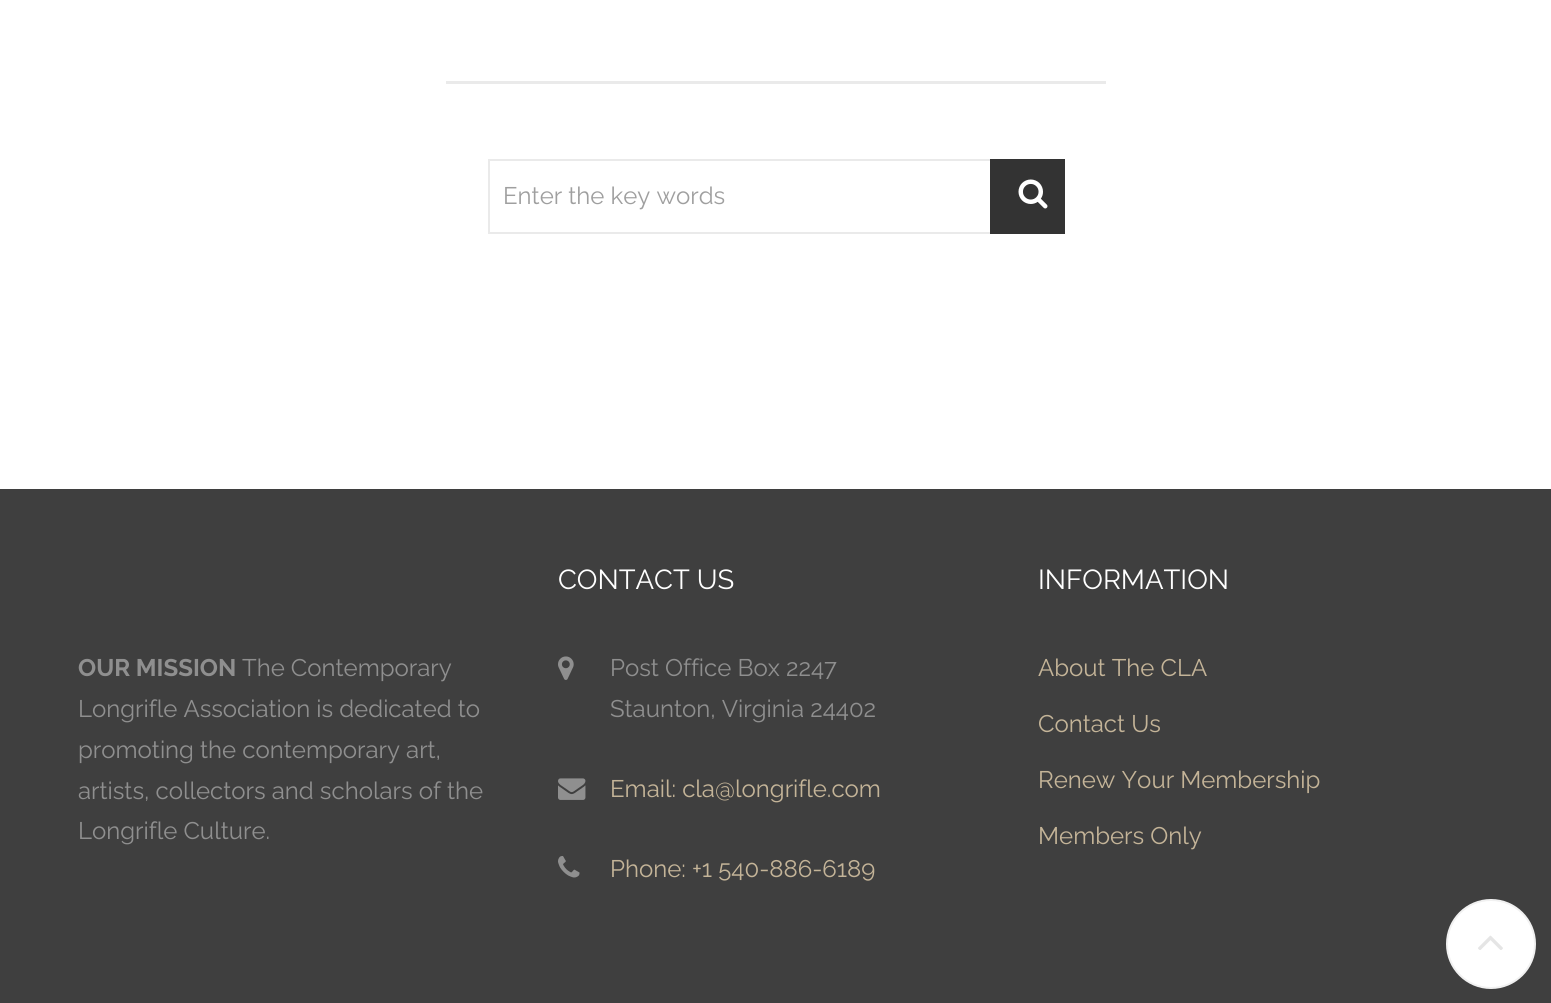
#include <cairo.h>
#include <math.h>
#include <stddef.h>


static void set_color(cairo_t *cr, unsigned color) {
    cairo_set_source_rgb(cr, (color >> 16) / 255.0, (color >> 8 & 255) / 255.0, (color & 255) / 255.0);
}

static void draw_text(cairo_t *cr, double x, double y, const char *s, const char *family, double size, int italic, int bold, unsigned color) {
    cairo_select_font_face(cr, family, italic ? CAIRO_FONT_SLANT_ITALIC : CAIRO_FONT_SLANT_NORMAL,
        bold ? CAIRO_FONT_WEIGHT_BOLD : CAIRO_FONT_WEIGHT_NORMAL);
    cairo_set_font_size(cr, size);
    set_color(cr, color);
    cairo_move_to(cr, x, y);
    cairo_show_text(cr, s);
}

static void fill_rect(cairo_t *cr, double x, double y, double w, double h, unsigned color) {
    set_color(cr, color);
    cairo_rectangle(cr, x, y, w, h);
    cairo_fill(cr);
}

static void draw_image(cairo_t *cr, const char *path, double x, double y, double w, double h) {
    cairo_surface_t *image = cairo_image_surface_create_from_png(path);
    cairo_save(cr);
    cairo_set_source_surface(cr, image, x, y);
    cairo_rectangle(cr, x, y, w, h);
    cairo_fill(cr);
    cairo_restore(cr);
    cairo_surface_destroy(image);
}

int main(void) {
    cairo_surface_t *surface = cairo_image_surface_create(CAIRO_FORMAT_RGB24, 1551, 1003);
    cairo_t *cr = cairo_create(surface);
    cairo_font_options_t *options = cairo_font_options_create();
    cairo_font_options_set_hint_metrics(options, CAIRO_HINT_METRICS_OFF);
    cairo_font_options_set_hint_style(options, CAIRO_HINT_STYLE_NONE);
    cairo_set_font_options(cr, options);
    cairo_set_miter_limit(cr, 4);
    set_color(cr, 0xFFFFFF);
    cairo_paint(cr);
    fill_rect(cr, 446, 81, 660, 3, 0xEAEAEA);
    cairo_rectangle(cr, 489, 160, 575, 73);
    cairo_stroke(cr);
    draw_text(cr, 503, 204, "Enter the key words", "Raleway", 24, 0, 0, 0x9F9F9F);
    fill_rect(cr, 990, 159, 75, 75, 0x333333);
    draw_image(cr, "assets/img1.png", 1018, 179, 30, 30);
    fill_rect(cr, 0, 489, 1551, 514, 0x3F3F3F);
    draw_text(cr, 78, 676, "OUR MISSION", "Raleway", 24, 0, 1, 0x8F8F8F);
    draw_text(cr, 242, 676, "The Contemporary", "Raleway", 24, 0, 0, 0x8F8F8F);
    draw_text(cr, 78, 717, "Longrifle Association is dedicated to", "Raleway", 24, 0, 0, 0x8F8F8F);
    draw_text(cr, 78, 758, "promoting the contemporary art,", "Raleway", 24, 0, 0, 0x8F8F8F);
    draw_text(cr, 78, 799, "artists, collectors and scholars of the", "Raleway", 24, 0, 0, 0x8F8F8F);
    draw_text(cr, 78, 839, "Longrifle Culture.", "Raleway", 24, 0, 0, 0x8F8F8F);
    draw_text(cr, 558, 589, "CONTACT US", "Raleway", 27.5, 0, 0, 0xFFFFFF);
    draw_image(cr, "assets/img2.png", 558, 656, 16, 24);
    draw_text(cr, 610, 676, "Post Office Box 2247", "Raleway", 24, 0, 0, 0x8F8F8F);
    draw_text(cr, 610, 717, "Staunton, Virginia 24402", "Raleway", 24, 0, 0, 0x8F8F8F);
    draw_image(cr, "assets/img3.png", 558, 778, 28, 22);
    draw_text(cr, 610, 797, "Email: cla@longrifle.com", "Raleway", 24, 0, 0, 0xC4B498);
    draw_image(cr, "assets/img4.png", 558, 856, 22, 22);
    draw_text(cr, 610, 877, "Phone: +1 540-886-6189", "Raleway", 24, 0, 0, 0xC4B498);
    draw_text(cr, 1038, 589, "INFORMATION", "Raleway", 27.5, 0, 0, 0xFFFFFF);
    draw_text(cr, 1038, 676, "About The CLA", "Raleway", 24, 0, 0, 0xC4B498);
    draw_text(cr, 1038, 732, "Contact Us", "Raleway", 24, 0, 0, 0xC4B498);
    draw_text(cr, 1038, 788, "Renew Your Membership", "Raleway", 24, 0, 0, 0xC4B498);
    draw_text(cr, 1038, 844, "Members Only", "Raleway", 24, 0, 0, 0xC4B498);
    set_color(cr, 0xFFFFFF);
    cairo_new_path(cr);
    cairo_arc(cr, 1491, 944, 44, 0, 2 * M_PI);
    cairo_fill_preserve(cr);
    set_color(cr, 0xF1F1F1);
    cairo_stroke(cr);
    draw_image(cr, "assets/img5.png", 1478, 935, 25, 15);
    cairo_surface_write_to_png(surface, "output.png");
    cairo_font_options_destroy(options);
    cairo_destroy(cr);
    cairo_surface_destroy(surface);
    return 0;
}
